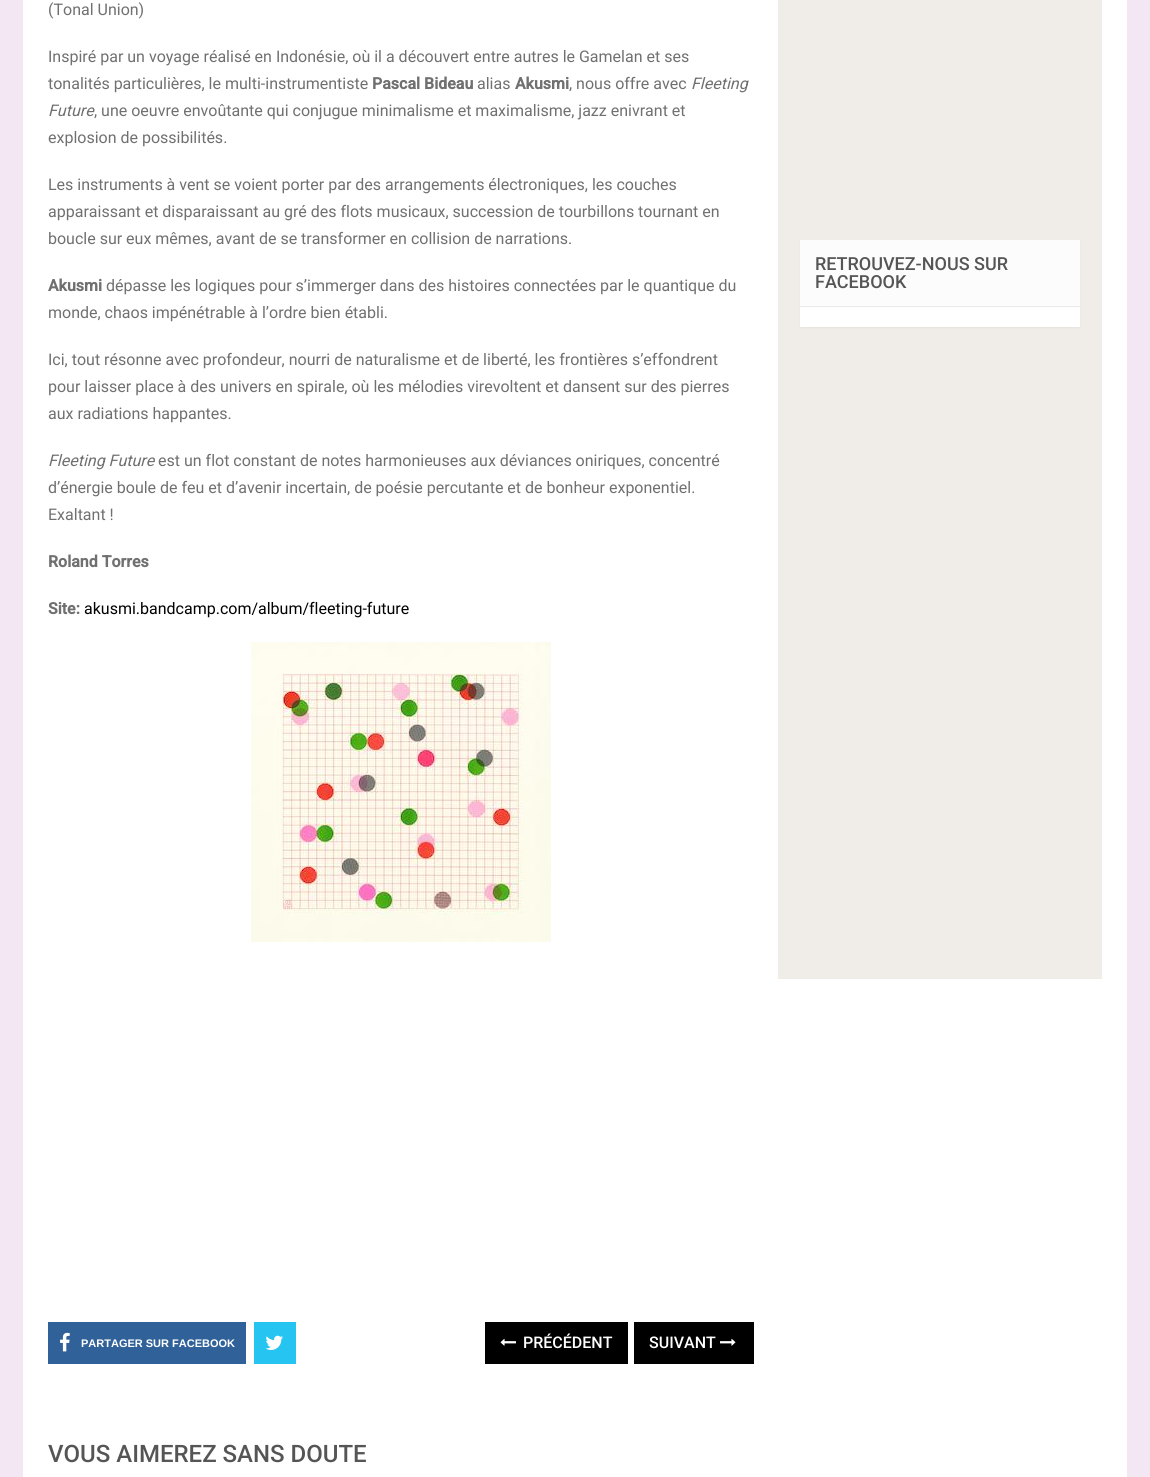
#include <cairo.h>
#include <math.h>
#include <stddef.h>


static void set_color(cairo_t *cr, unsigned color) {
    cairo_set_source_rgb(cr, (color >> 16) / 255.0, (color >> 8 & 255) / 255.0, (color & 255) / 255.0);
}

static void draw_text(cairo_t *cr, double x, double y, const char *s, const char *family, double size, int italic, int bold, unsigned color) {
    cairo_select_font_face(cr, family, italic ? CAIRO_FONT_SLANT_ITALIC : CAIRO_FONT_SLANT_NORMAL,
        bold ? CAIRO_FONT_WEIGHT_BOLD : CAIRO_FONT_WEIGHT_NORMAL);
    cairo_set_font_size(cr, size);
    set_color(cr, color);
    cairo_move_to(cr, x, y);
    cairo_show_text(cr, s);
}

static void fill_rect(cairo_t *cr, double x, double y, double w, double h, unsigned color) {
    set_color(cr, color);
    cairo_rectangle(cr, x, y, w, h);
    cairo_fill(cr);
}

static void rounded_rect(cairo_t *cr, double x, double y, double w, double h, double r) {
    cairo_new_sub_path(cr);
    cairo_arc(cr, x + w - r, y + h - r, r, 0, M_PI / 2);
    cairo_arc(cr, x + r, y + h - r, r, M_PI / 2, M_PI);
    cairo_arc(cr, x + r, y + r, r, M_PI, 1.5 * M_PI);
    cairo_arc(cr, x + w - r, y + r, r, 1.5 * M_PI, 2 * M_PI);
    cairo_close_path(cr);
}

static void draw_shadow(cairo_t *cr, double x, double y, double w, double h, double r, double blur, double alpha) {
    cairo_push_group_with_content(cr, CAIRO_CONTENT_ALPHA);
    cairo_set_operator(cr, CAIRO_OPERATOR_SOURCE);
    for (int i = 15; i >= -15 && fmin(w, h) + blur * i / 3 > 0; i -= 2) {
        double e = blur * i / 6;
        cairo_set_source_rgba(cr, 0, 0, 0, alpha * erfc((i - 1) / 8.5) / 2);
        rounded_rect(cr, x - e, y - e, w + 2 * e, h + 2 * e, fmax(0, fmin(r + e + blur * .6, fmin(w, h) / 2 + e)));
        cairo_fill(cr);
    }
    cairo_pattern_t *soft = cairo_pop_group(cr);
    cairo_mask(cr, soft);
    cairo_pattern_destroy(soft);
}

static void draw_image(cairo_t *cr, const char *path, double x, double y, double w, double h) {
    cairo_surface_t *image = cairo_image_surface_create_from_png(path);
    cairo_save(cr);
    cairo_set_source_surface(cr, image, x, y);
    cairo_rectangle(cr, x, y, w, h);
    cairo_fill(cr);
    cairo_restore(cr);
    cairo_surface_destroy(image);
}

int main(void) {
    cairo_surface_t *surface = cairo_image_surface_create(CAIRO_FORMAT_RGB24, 1150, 1477);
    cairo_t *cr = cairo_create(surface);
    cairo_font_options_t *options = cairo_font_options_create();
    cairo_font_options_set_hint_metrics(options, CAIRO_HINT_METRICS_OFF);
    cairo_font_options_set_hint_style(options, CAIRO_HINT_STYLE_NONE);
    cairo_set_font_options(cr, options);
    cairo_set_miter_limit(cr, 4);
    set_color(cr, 0xF2E7F2);
    cairo_paint(cr);
    fill_rect(cr, 23, 0, 1104, 1477, 0xFFFFFF);
    draw_text(cr, 48, 15, "(Tonal Union)", "Roboto", 16, 0, 0, 0x707070);
    draw_text(cr, 48, 62, "Inspiré par un voyage réalisé en Indonésie, où il a découvert entre autres le Gamelan et ses", "Roboto", 16, 0, 0, 0x707070);
    draw_text(cr, 48, 89, "tonalités particulières, le multi-instrumentiste", "Roboto", 16, 0, 0, 0x707070);
    draw_text(cr, 372, 89, "Pascal Bideau", "Roboto", 16, 0, 1, 0x707070);
    draw_text(cr, 477, 89, "alias", "Roboto", 16, 0, 0, 0x707070);
    draw_text(cr, 515, 89, "Akusmi", "Roboto", 16, 0, 1, 0x707070);
    draw_text(cr, 569, 89, ", nous offre avec", "Roboto", 16, 0, 0, 0x707070);
    draw_text(cr, 691, 89, "Fleeting", "Roboto", 16, 1, 0, 0x707070);
    draw_text(cr, 48, 116, "Future", "Roboto", 16, 1, 0, 0x707070);
    draw_text(cr, 94, 116, ", une oeuvre envoûtante qui conjugue minimalisme et maximalisme, jazz enivrant et", "Roboto", 16, 0, 0, 0x707070);
    draw_text(cr, 48, 143, "explosion de possibilités.", "Roboto", 16, 0, 0, 0x707070);
    draw_text(cr, 48, 190, "Les instruments à vent se voient porter par des arrangements électroniques, les couches", "Roboto", 16, 0, 0, 0x707070);
    draw_text(cr, 48, 217, "apparaissant et disparaissant au gré des flots musicaux, succession de tourbillons tournant en", "Roboto", 16, 0, 0, 0x707070);
    draw_text(cr, 48, 244, "boucle sur eux mêmes, avant de se transformer en collision de narrations.", "Roboto", 16, 0, 0, 0x707070);
    draw_text(cr, 48, 291, "Akusmi", "Roboto", 16, 0, 1, 0x707070);
    draw_text(cr, 106, 291, "dépasse les logiques pour s’immerger dans des histoires connectées par le quantique du", "Roboto", 16, 0, 0, 0x707070);
    draw_text(cr, 48, 318, "monde, chaos impénétrable à l’ordre bien établi.", "Roboto", 16, 0, 0, 0x707070);
    draw_text(cr, 48, 365, "Ici, tout résonne avec profondeur, nourri de naturalisme et de liberté, les frontières s’effondrent", "Roboto", 16, 0, 0, 0x707070);
    draw_text(cr, 48, 392, "pour laisser place à des univers en spirale, où les mélodies virevoltent et dansent sur des pierres", "Roboto", 16, 0, 0, 0x707070);
    draw_text(cr, 48, 419, "aux radiations happantes.", "Roboto", 16, 0, 0, 0x707070);
    draw_text(cr, 48, 466, "Fleeting Future", "Roboto", 16, 1, 0, 0x707070);
    draw_text(cr, 158, 466, "est un flot constant de notes harmonieuses aux déviances oniriques, concentré", "Roboto", 16, 0, 0, 0x707070);
    draw_text(cr, 48, 493, "d’énergie boule de feu et d’avenir incertain, de poésie percutante et de bonheur exponentiel.", "Roboto", 16, 0, 0, 0x707070);
    draw_text(cr, 48, 520, "Exaltant !", "Roboto", 16, 0, 0, 0x707070);
    draw_text(cr, 48, 567, "Roland Torres", "Roboto", 16, 0, 1, 0x707070);
    draw_text(cr, 48, 614, "Site:", "Roboto", 16, 0, 1, 0x707070);
    draw_text(cr, 84, 614, "akusmi.bandcamp.com/album/fleeting-future", "Roboto", 16, 0, 0, 0x000000);
    draw_image(cr, "assets/img1.png", 251, 642, 300, 300);
    fill_rect(cr, 48, 1322, 198, 42, 0x306199);
    draw_image(cr, "assets/img2.png", 60, 1332, 10, 20);
    draw_text(cr, 81, 1347, "PARTAGER SUR FACEBOOK", "Liberation Sans", 11, 0, 1, 0xFFFFFF);
    fill_rect(cr, 254, 1322, 42, 42, 0x26C4F1);
    draw_image(cr, "assets/img3.png", 265, 1335, 18, 15);
    fill_rect(cr, 485, 1322, 143, 42, 0x000000);
    draw_image(cr, "assets/img4.png", 500, 1338, 16, 8);
    draw_text(cr, 523, 1348, "PRÉCÉDENT", "Roboto Medium", 16, 0, 0, 0xFFFFFF);
    fill_rect(cr, 634, 1322, 120, 42, 0x000000);
    draw_text(cr, 649, 1348, "SUIVANT", "Roboto Medium", 16, 0, 0, 0xFFFFFF);
    draw_image(cr, "assets/img5.png", 720, 1338, 16, 8);
    draw_text(cr, 48, 1462, "VOUS AIMEREZ SANS DOUTE", "Roboto Medium", 24, 0, 0, 0x555555);
    fill_rect(cr, 778, 0, 324, 979, 0xF0EDE9);
    set_color(cr, 0x000000);
    draw_shadow(cr, 800, 241, 280, 87, 0, 1, 0.05);
    fill_rect(cr, 800, 307, 280, 20, 0xFFFFFF);
    fill_rect(cr, 800, 240, 280, 66, 0xFCFCFC);
    fill_rect(cr, 800, 306, 280, 1, 0xE9E9E9);
    draw_text(cr, 815, 270, "RETROUVEZ-NOUS SUR", "Roboto Medium", 18, 0, 0, 0x555555);
    draw_text(cr, 815, 288, "FACEBOOK", "Roboto Medium", 18, 0, 0, 0x555555);
    cairo_surface_write_to_png(surface, "output.png");
    cairo_font_options_destroy(options);
    cairo_destroy(cr);
    cairo_surface_destroy(surface);
    return 0;
}
